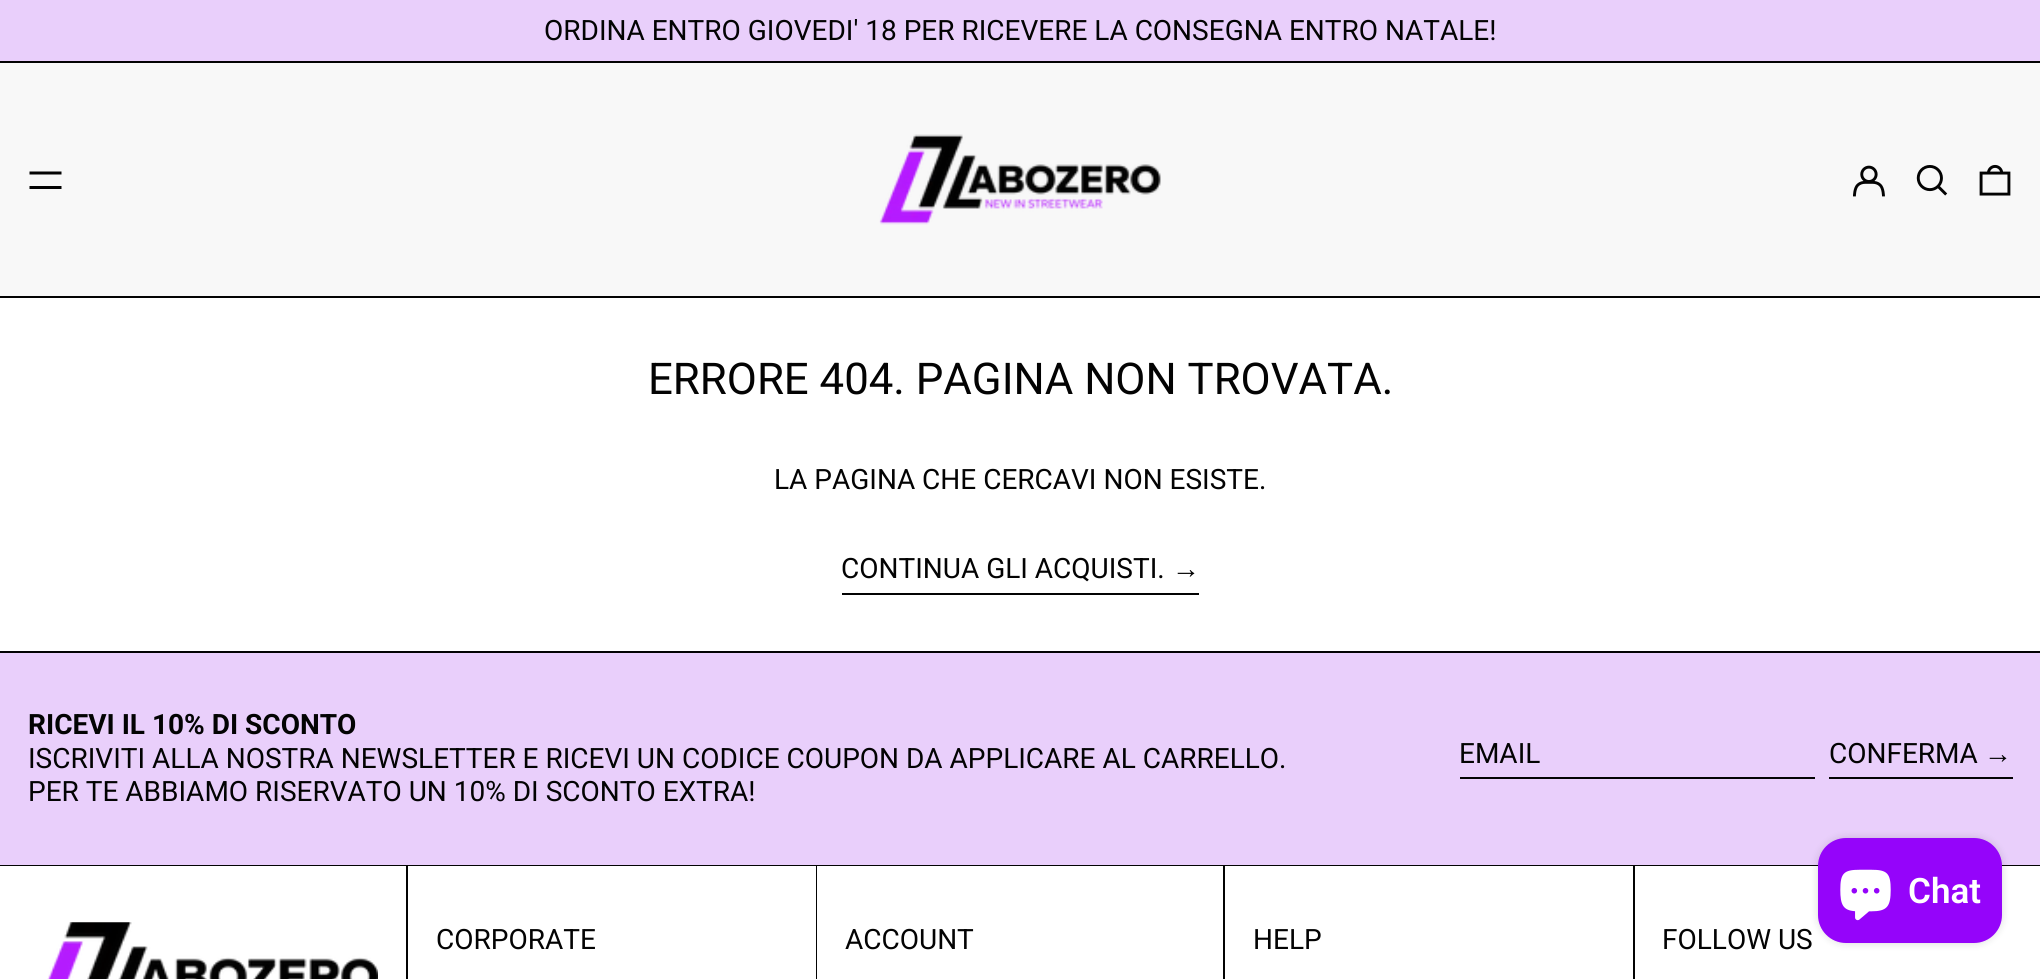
#include <cairo.h>
#include <math.h>
#include <stddef.h>


static void set_color(cairo_t *cr, unsigned color) {
    cairo_set_source_rgb(cr, (color >> 16) / 255.0, (color >> 8 & 255) / 255.0, (color & 255) / 255.0);
}

static void draw_text(cairo_t *cr, double x, double y, const char *s, const char *family, double size, int italic, int bold, unsigned color) {
    cairo_select_font_face(cr, family, italic ? CAIRO_FONT_SLANT_ITALIC : CAIRO_FONT_SLANT_NORMAL,
        bold ? CAIRO_FONT_WEIGHT_BOLD : CAIRO_FONT_WEIGHT_NORMAL);
    cairo_set_font_size(cr, size);
    set_color(cr, color);
    cairo_move_to(cr, x, y);
    cairo_show_text(cr, s);
}

static void fill_rect(cairo_t *cr, double x, double y, double w, double h, unsigned color) {
    set_color(cr, color);
    cairo_rectangle(cr, x, y, w, h);
    cairo_fill(cr);
}

static void rounded_rect(cairo_t *cr, double x, double y, double w, double h, double r) {
    cairo_new_sub_path(cr);
    cairo_arc(cr, x + w - r, y + h - r, r, 0, M_PI / 2);
    cairo_arc(cr, x + r, y + h - r, r, M_PI / 2, M_PI);
    cairo_arc(cr, x + r, y + r, r, M_PI, 1.5 * M_PI);
    cairo_arc(cr, x + w - r, y + r, r, 1.5 * M_PI, 2 * M_PI);
    cairo_close_path(cr);
}

static void draw_shadow(cairo_t *cr, double x, double y, double w, double h, double r, double blur, double alpha) {
    cairo_push_group_with_content(cr, CAIRO_CONTENT_ALPHA);
    cairo_set_operator(cr, CAIRO_OPERATOR_SOURCE);
    for (int i = 15; i >= -15 && fmin(w, h) + blur * i / 3 > 0; i -= 2) {
        double e = blur * i / 6;
        cairo_set_source_rgba(cr, 0, 0, 0, alpha * erfc((i - 1) / 8.5) / 2);
        rounded_rect(cr, x - e, y - e, w + 2 * e, h + 2 * e, fmax(0, fmin(r + e + blur * .6, fmin(w, h) / 2 + e)));
        cairo_fill(cr);
    }
    cairo_pattern_t *soft = cairo_pop_group(cr);
    cairo_mask(cr, soft);
    cairo_pattern_destroy(soft);
}

static void draw_image(cairo_t *cr, const char *path, double x, double y, double w, double h) {
    cairo_surface_t *image = cairo_image_surface_create_from_png(path);
    cairo_save(cr);
    cairo_set_source_surface(cr, image, x, y);
    cairo_rectangle(cr, x, y, w, h);
    cairo_fill(cr);
    cairo_restore(cr);
    cairo_surface_destroy(image);
}

int main(void) {
    cairo_surface_t *surface = cairo_image_surface_create(CAIRO_FORMAT_RGB24, 2040, 979);
    cairo_t *cr = cairo_create(surface);
    cairo_font_options_t *options = cairo_font_options_create();
    cairo_font_options_set_hint_metrics(options, CAIRO_HINT_METRICS_OFF);
    cairo_font_options_set_hint_style(options, CAIRO_HINT_STYLE_NONE);
    cairo_set_font_options(cr, options);
    cairo_set_miter_limit(cr, 4);
    set_color(cr, 0xFFFFFF);
    cairo_paint(cr);
    fill_rect(cr, 0, 0, 2040, 61, 0xE9CFFB);
    fill_rect(cr, 0, 61, 2040, 2, 0x030303);
    draw_text(cr, 544, 40, "ORDINA ENTRO GIOVEDI' 18 PER RICEVERE LA CONSEGNA ENTRO NATALE!", "Roboto", 28, 0, 0, 0x030303);
    fill_rect(cr, 0, 63, 2040, 233, 0xF8F8F8);
    fill_rect(cr, 0, 296, 2040, 2, 0x030303);
    cairo_set_fill_rule(cr, CAIRO_FILL_RULE_EVEN_ODD);
    cairo_new_path(cr);
    cairo_move_to(cr, 61.5, 186);
    cairo_line_to(cr, 61.5, 189);
    cairo_line_to(cr, 29.5, 189);
    cairo_line_to(cr, 29.5, 186);
    cairo_close_path(cr);
    cairo_move_to(cr, 61.5, 171.5);
    cairo_line_to(cr, 61.5, 174.5);
    cairo_line_to(cr, 29.5, 174.5);
    cairo_line_to(cr, 29.5, 171.5);
    cairo_close_path(cr);
    cairo_fill(cr);
    draw_image(cr, "assets/img1.png", 879, 134, 282, 91);
    draw_image(cr, "assets/img2.png", 1853, 165, 32, 32);
    draw_image(cr, "assets/img3.png", 1916, 165, 32, 31);
    draw_image(cr, "assets/img4.png", 1979, 164, 32, 32);
    draw_text(cr, 648, 394, "ERRORE 404. PAGINA NON TROVATA.", "Roboto", 43.75, 0, 0, 0x030303);
    draw_text(cr, 774, 489, "LA PAGINA CHE CERCAVI NON ESISTE.", "Roboto", 28, 0, 0, 0x030303);
    fill_rect(cr, 842, 593, 357, 2, 0x030303);
    draw_text(cr, 841, 578, "CONTINUA GLI ACQUISTI.", "Roboto", 28, 0, 0, 0x030303);
    draw_text(cr, 1172, 578, "→", "Liberation Sans", 28, 0, 0, 0x030303);
    fill_rect(cr, 0, 653, 2040, 212, 0xE9CFFB);
    fill_rect(cr, 0, 651, 2040, 2, 0x030303);
    draw_text(cr, 28, 734, "RICEVI IL 10% DI SCONTO", "Roboto", 28, 0, 1, 0x030303);
    draw_text(cr, 28, 768, "ISCRIVITI ALLA NOSTRA NEWSLETTER E RICEVI UN CODICE COUPON DA APPLICARE AL CARRELLO.", "Roboto", 28, 0, 0, 0x030303);
    draw_text(cr, 28, 801, "PER TE ABBIAMO RISERVATO UN 10% DI SCONTO EXTRA!", "Roboto", 28, 0, 0, 0x030303);
    fill_rect(cr, 1460, 777, 355, 2, 0x030303);
    draw_text(cr, 1459, 763, "EMAIL", "Roboto", 28, 0, 0, 0x030303);
    fill_rect(cr, 1829, 777, 184, 2, 0x030303);
    draw_text(cr, 1829, 763, "CONFERMA", "Roboto", 28, 0, 0, 0x030303);
    draw_text(cr, 1984, 763, "→", "Liberation Sans", 28, 0, 0, 0x030303);
    fill_rect(cr, 0, 865, 2040, 1, 0x030303);
    fill_rect(cr, 406, 866, 1229, 113, 0x030303);
    draw_image(cr, "assets/img5.png", 47, 922, 331, 57);
    fill_rect(cr, 408, 866, 408, 113, 0xFFFFFF);
    draw_text(cr, 436, 949, "CORPORATE", "Roboto", 28, 0, 0, 0x030303);
    fill_rect(cr, 817, 866, 406, 113, 0xFFFFFF);
    draw_text(cr, 845, 949, "ACCOUNT", "Roboto", 28, 0, 0, 0x030303);
    fill_rect(cr, 1225, 866, 408, 113, 0xFFFFFF);
    draw_text(cr, 1253, 949, "HELP", "Roboto", 28, 0, 0, 0x030303);
    draw_text(cr, 1662, 949, "FOLLOW US", "Roboto", 28, 0, 0, 0x030303);
    set_color(cr, 0x000000);
    draw_shadow(cr, 1818, 838, 184, 105, 28, 4.5, 0.15);
    set_color(cr, 0x9504FA);
    rounded_rect(cr, 1818, 838, 184, 105, 28);
    cairo_fill(cr);
    draw_image(cr, "assets/img6.png", 1840, 869, 51, 52);
    draw_text(cr, 1908, 903, "Chat", "Roboto SemiBold", 35, 0, 0, 0xFFFFFF);
    cairo_surface_write_to_png(surface, "output.png");
    cairo_font_options_destroy(options);
    cairo_destroy(cr);
    cairo_surface_destroy(surface);
    return 0;
}
